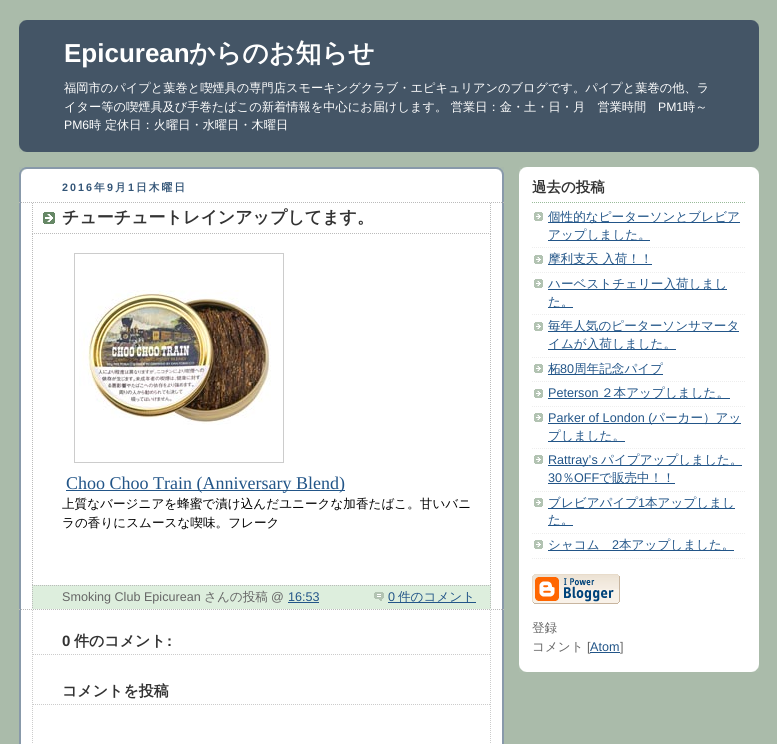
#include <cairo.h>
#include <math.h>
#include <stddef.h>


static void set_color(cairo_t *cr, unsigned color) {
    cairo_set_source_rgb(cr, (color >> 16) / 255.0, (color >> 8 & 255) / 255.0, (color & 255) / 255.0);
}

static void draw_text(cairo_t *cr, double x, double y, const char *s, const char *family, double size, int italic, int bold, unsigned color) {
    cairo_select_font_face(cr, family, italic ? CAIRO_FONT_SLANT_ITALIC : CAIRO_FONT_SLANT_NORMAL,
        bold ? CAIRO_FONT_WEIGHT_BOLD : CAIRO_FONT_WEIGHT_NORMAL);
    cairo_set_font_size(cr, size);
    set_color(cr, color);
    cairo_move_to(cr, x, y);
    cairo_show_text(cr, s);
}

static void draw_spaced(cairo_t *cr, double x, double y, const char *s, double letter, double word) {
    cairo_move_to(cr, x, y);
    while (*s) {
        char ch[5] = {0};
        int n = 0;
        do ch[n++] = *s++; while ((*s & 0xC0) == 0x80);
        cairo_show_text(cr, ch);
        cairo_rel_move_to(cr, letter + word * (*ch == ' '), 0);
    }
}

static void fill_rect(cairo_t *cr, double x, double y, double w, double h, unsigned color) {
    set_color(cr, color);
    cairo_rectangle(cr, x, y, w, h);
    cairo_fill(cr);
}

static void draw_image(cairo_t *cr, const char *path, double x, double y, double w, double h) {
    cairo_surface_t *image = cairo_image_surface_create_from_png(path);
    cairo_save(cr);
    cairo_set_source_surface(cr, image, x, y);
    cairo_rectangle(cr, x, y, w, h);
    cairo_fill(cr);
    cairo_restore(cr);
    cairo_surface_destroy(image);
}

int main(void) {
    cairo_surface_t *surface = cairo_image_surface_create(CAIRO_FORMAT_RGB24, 777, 744);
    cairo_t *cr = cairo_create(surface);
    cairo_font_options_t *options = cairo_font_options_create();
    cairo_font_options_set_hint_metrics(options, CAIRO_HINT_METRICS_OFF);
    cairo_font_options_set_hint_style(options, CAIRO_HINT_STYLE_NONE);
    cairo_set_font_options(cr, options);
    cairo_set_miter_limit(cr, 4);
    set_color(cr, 0xAABBAA);
    cairo_paint(cr);
    fill_rect(cr, 19, 20, 740, 132, 0x445566);
    draw_image(cr, "assets/img1.png", 19, 20, 740, 8);
    draw_image(cr, "assets/img2.png", 19, 144, 740, 8);
    draw_text(cr, 64, 62, "Epicurean", "Liberation Sans", 26, 0, 1, 0xFFFFFF);
    draw_text(cr, 189, 62, "からのお知らせ", "WenQuanYi Zen Hei", 26, 0, 1, 0xFFFFFF);
    draw_text(cr, 64, 92, "福岡市のパイプと葉巻と喫煙具の専門店スモーキングクラブ・エピキュリアンのブログです。パイプと葉巻の他、ラ", "WenQuanYi Zen Hei Medium", 12.22, 0, 0, 0xFFFFFF);
    draw_text(cr, 64, 111, "イター等の喫煙具及び手巻たばこの新着情報を中心にお届けします。 営業日：金・土・日・月　営業時間", "WenQuanYi Zen Hei Medium", 12.22, 0, 0, 0xFFFFFF);
    draw_text(cr, 658, 111, "PM1", "Liberation Sans", 12.22, 0, 0, 0xFFFFFF);
    draw_text(cr, 683, 111, "時～", "WenQuanYi Zen Hei Medium", 12.22, 0, 0, 0xFFFFFF);
    draw_text(cr, 64, 129, "PM6", "Liberation Sans", 12.22, 0, 0, 0xFFFFFF);
    draw_text(cr, 89, 129, "時 定休日：火曜日・水曜日・木曜日", "WenQuanYi Zen Hei Medium", 12.22, 0, 0, 0xFFFFFF);
    fill_rect(cr, 21, 169, 481, 575, 0xFFFFFF);
    draw_image(cr, "assets/img3.png", 19, 167, 485, 50);
    draw_image(cr, "assets/img4.png", 19, 217, 485, 527);
    cairo_select_font_face(cr, "Liberation Sans", CAIRO_FONT_SLANT_NORMAL, CAIRO_FONT_WEIGHT_BOLD);
    cairo_set_font_size(cr, 10.75);
    set_color(cr, 0x335577);
    draw_spaced(cr, 62, 191, "2016", 2, 0);
    cairo_select_font_face(cr, "WenQuanYi Zen Hei", CAIRO_FONT_SLANT_NORMAL, CAIRO_FONT_WEIGHT_BOLD);
    draw_spaced(cr, 94, 191, "年", 2, 0);
    cairo_select_font_face(cr, "Liberation Sans", CAIRO_FONT_SLANT_NORMAL, CAIRO_FONT_WEIGHT_BOLD);
    draw_spaced(cr, 107, 191, "9", 2, 0);
    cairo_select_font_face(cr, "WenQuanYi Zen Hei", CAIRO_FONT_SLANT_NORMAL, CAIRO_FONT_WEIGHT_BOLD);
    draw_spaced(cr, 115, 191, "月", 2, 0);
    cairo_select_font_face(cr, "Liberation Sans", CAIRO_FONT_SLANT_NORMAL, CAIRO_FONT_WEIGHT_BOLD);
    draw_spaced(cr, 128, 191, "1", 2, 0);
    cairo_select_font_face(cr, "WenQuanYi Zen Hei", CAIRO_FONT_SLANT_NORMAL, CAIRO_FONT_WEIGHT_BOLD);
    draw_spaced(cr, 136, 191, "日木曜日", 2, 0);
    cairo_new_path(cr);
    cairo_move_to(cr, 19, 202.5);
    cairo_line_to(cr, 504, 202.5);
    set_color(cr, 0xBBBBBB);
    cairo_set_line_width(cr, 1);
    cairo_set_dash(cr, (double[]){1, 1}, 2, 0);
    cairo_stroke(cr);
    cairo_new_path(cr);
    cairo_move_to(cr, 19, 609.5);
    cairo_line_to(cr, 504, 609.5);
    cairo_stroke(cr);
    draw_image(cr, "assets/img5.png", 43, 212, 12, 12);
    cairo_new_path(cr);
    cairo_move_to(cr, 490.5, 203);
    cairo_line_to(cr, 490.5, 234);
    cairo_stroke(cr);
    cairo_new_path(cr);
    cairo_move_to(cr, 32, 233.5);
    cairo_line_to(cr, 491, 233.5);
    cairo_stroke(cr);
    cairo_new_path(cr);
    cairo_move_to(cr, 32.5, 203);
    cairo_line_to(cr, 32.5, 234);
    cairo_stroke(cr);
    draw_text(cr, 62, 223, "チューチュートレインアップしてます。", "WenQuanYi Zen Hei", 17, 0, 1, 0x333333);
    cairo_new_path(cr);
    cairo_move_to(cr, 490.5, 234);
    cairo_line_to(cr, 490.5, 585);
    set_color(cr, 0xBBBBBB);
    cairo_stroke(cr);
    cairo_new_path(cr);
    cairo_move_to(cr, 32.5, 234);
    cairo_line_to(cr, 32.5, 585);
    cairo_stroke(cr);
    cairo_rectangle(cr, 74.5, 253.5, 209, 209);
    set_color(cr, 0xCCCCCC);
    cairo_set_dash(cr, NULL, 0, 0);
    cairo_stroke(cr);
    draw_image(cr, "assets/img6.png", 79, 290, 192, 135);
    fill_rect(cr, 66, 490, 279, 1, 0x225588);
    draw_text(cr, 66, 489, "Choo Choo Train (Anniversary Blend)", "Liberation Serif", 18, 0, 0, 0x225588);
    draw_text(cr, 62, 508, "上質なバージニアを蜂蜜で漬け込んだユニークな加香たばこ。甘いバニ", "WenQuanYi Zen Hei Medium", 12.6, 0, 0, 0x000000);
    draw_text(cr, 62, 527, "ラの香りにスムースな喫味。フレーク", "WenQuanYi Zen Hei Medium", 12.6, 0, 0, 0x000000);
    fill_rect(cr, 32, 585, 459, 24, 0xDDEEDD);
    cairo_new_path(cr);
    cairo_move_to(cr, 32, 585.5);
    cairo_line_to(cr, 491, 585.5);
    set_color(cr, 0xBBBBBB);
    cairo_set_dash(cr, (double[]){1, 1}, 2, 0);
    cairo_stroke(cr);
    cairo_new_path(cr);
    cairo_move_to(cr, 490.5, 585);
    cairo_line_to(cr, 490.5, 609);
    cairo_stroke(cr);
    cairo_new_path(cr);
    cairo_move_to(cr, 32.5, 585);
    cairo_line_to(cr, 32.5, 609);
    cairo_stroke(cr);
    draw_text(cr, 62, 601, "Smoking Club Epicurean", "Liberation Sans", 12.6, 0, 0, 0x666666);
    draw_text(cr, 204, 601, "さんの投稿", "WenQuanYi Zen Hei Medium", 12.6, 0, 0, 0x666666);
    draw_text(cr, 271, 601, "@", "Liberation Sans", 12.6, 0, 0, 0x666666);
    draw_text(cr, 288, 601, "16:53", "Liberation Sans", 12.6, 0, 0, 0x225588);
    fill_rect(cr, 288, 602, 31, 1, 0x225588);
    draw_image(cr, "assets/img7.png", 374, 592, 10, 9);
    draw_text(cr, 388, 601, "0", "Liberation Sans", 12.6, 0, 0, 0x225588);
    fill_rect(cr, 388, 602, 88, 1, 0x225588);
    draw_text(cr, 398, 601, "件のコメント", "WenQuanYi Zen Hei Medium", 12.6, 0, 0, 0x225588);
    cairo_new_path(cr);
    cairo_move_to(cr, 490.5, 610);
    cairo_line_to(cr, 490.5, 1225);
    set_color(cr, 0xCCCCCC);
    cairo_stroke(cr);
    cairo_new_path(cr);
    cairo_move_to(cr, 32.5, 610);
    cairo_line_to(cr, 32.5, 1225);
    cairo_stroke(cr);
    cairo_new_path(cr);
    cairo_move_to(cr, 33, 654.5);
    cairo_line_to(cr, 490, 654.5);
    cairo_stroke(cr);
    draw_text(cr, 62, 646, "0", "Liberation Sans", 15, 0, 1, 0x333333);
    draw_text(cr, 74, 646, "件のコメント", "WenQuanYi Zen Hei", 15, 0, 1, 0x333333);
    draw_text(cr, 167, 646, ":", "Liberation Sans", 15, 0, 1, 0x333333);
    cairo_new_path(cr);
    cairo_move_to(cr, 33, 704.5);
    cairo_line_to(cr, 490, 704.5);
    set_color(cr, 0xCCCCCC);
    cairo_stroke(cr);
    draw_text(cr, 62, 696, "コメントを投稿", "WenQuanYi Zen Hei", 15, 0, 1, 0x333333);
    fill_rect(cr, 519, 167, 240, 505, 0xFFFFFF);
    draw_image(cr, "assets/img8.png", 519, 167, 240, 8);
    draw_image(cr, "assets/img9.png", 519, 664, 240, 8);
    cairo_new_path(cr);
    cairo_move_to(cr, 532, 202.5);
    cairo_line_to(cr, 746, 202.5);
    set_color(cr, 0x99BB99);
    cairo_stroke(cr);
    draw_text(cr, 532, 192, "過去の投稿", "WenQuanYi Zen Hei", 14.5, 0, 1, 0x333333);
    draw_image(cr, "assets/img10.png", 534, 212, 9, 9);
    cairo_new_path(cr);
    cairo_move_to(cr, 532, 247.5);
    cairo_line_to(cr, 746, 247.5);
    set_color(cr, 0xEEEEEE);
    cairo_stroke(cr);
    fill_rect(cr, 548, 222, 192, 1, 0x225588);
    draw_text(cr, 548, 221, "個性的なピーターソンとブレビア", "WenQuanYi Zen Hei Medium", 12.6, 0, 0, 0x225588);
    fill_rect(cr, 548, 240, 102, 1, 0x225588);
    draw_text(cr, 548, 239, "アップしました。", "WenQuanYi Zen Hei Medium", 12.6, 0, 0, 0x225588);
    draw_image(cr, "assets/img10.png", 534, 255, 9, 9);
    cairo_new_path(cr);
    cairo_move_to(cr, 532, 272.5);
    cairo_line_to(cr, 746, 272.5);
    set_color(cr, 0xEEEEEE);
    cairo_stroke(cr);
    fill_rect(cr, 548, 264, 104, 1, 0x225588);
    draw_text(cr, 548, 263, "摩利支天 入荷！！", "WenQuanYi Zen Hei Medium", 12.6, 0, 0, 0x225588);
    draw_image(cr, "assets/img10.png", 534, 279, 9, 9);
    cairo_new_path(cr);
    cairo_move_to(cr, 532, 314.5);
    cairo_line_to(cr, 746, 314.5);
    set_color(cr, 0xEEEEEE);
    cairo_stroke(cr);
    fill_rect(cr, 548, 289, 179, 1, 0x225588);
    draw_text(cr, 548, 288, "ハーベストチェリー入荷しまし", "WenQuanYi Zen Hei Medium", 12.6, 0, 0, 0x225588);
    fill_rect(cr, 548, 307, 25, 1, 0x225588);
    draw_text(cr, 548, 306, "た。", "WenQuanYi Zen Hei Medium", 12.6, 0, 0, 0x225588);
    draw_image(cr, "assets/img10.png", 534, 322, 9, 9);
    cairo_new_path(cr);
    cairo_move_to(cr, 532, 357.5);
    cairo_line_to(cr, 746, 357.5);
    set_color(cr, 0xEEEEEE);
    cairo_stroke(cr);
    fill_rect(cr, 548, 331, 191, 1, 0x225588);
    draw_text(cr, 548, 330, "毎年人気のピーターソンサマータ", "WenQuanYi Zen Hei Medium", 12.6, 0, 0, 0x225588);
    fill_rect(cr, 548, 349, 128, 1, 0x225588);
    draw_text(cr, 548, 348, "イムが入荷しました。", "WenQuanYi Zen Hei Medium", 12.6, 0, 0, 0x225588);
    draw_image(cr, "assets/img10.png", 534, 364, 9, 9);
    cairo_new_path(cr);
    cairo_move_to(cr, 532, 381.5);
    cairo_line_to(cr, 746, 381.5);
    set_color(cr, 0xEEEEEE);
    cairo_stroke(cr);
    fill_rect(cr, 548, 374, 115, 1, 0x225588);
    draw_text(cr, 548, 373, "柘", "WenQuanYi Zen Hei Medium", 12.6, 0, 0, 0x225588);
    draw_text(cr, 560, 373, "80", "Liberation Sans", 12.6, 0, 0, 0x225588);
    draw_text(cr, 574, 373, "周年記念パイプ", "WenQuanYi Zen Hei Medium", 12.6, 0, 0, 0x225588);
    draw_image(cr, "assets/img10.png", 534, 389, 9, 9);
    cairo_new_path(cr);
    cairo_move_to(cr, 532, 406.5);
    cairo_line_to(cr, 746, 406.5);
    set_color(cr, 0xEEEEEE);
    cairo_stroke(cr);
    draw_text(cr, 548, 397, "Peterson", "Liberation Sans", 12.6, 0, 0, 0x225588);
    fill_rect(cr, 548, 398, 182, 1, 0x225588);
    draw_text(cr, 601, 397, "２本アップしました。", "WenQuanYi Zen Hei Medium", 12.6, 0, 0, 0x225588);
    draw_image(cr, "assets/img10.png", 534, 413, 9, 9);
    cairo_new_path(cr);
    cairo_move_to(cr, 532, 448.5);
    cairo_line_to(cr, 746, 448.5);
    set_color(cr, 0xEEEEEE);
    cairo_stroke(cr);
    fill_rect(cr, 548, 423, 193, 1, 0x225588);
    draw_text(cr, 548, 422, "Parker of London (", "Liberation Sans", 12.6, 0, 0, 0x225588);
    draw_text(cr, 652, 422, "パーカー）アッ", "WenQuanYi Zen Hei Medium", 12.6, 0, 0, 0x225588);
    fill_rect(cr, 548, 441, 77, 1, 0x225588);
    draw_text(cr, 548, 440, "プしました。", "WenQuanYi Zen Hei Medium", 12.6, 0, 0, 0x225588);
    draw_image(cr, "assets/img10.png", 534, 455, 9, 9);
    cairo_new_path(cr);
    cairo_move_to(cr, 532, 491.5);
    cairo_line_to(cr, 746, 491.5);
    set_color(cr, 0xEEEEEE);
    cairo_stroke(cr);
    fill_rect(cr, 548, 465, 194, 1, 0x225588);
    draw_text(cr, 548, 464, "Rattray’s", "Liberation Sans", 12.6, 0, 0, 0x225588);
    draw_text(cr, 601, 464, "パイプアップしました。", "WenQuanYi Zen Hei Medium", 12.6, 0, 0, 0x225588);
    draw_text(cr, 548, 482, "30", "Liberation Sans", 12.6, 0, 0, 0x225588);
    fill_rect(cr, 548, 483, 127, 1, 0x225588);
    draw_text(cr, 562, 482, "％", "WenQuanYi Zen Hei Medium", 12.6, 0, 0, 0x225588);
    draw_text(cr, 574, 482, "OFF", "Liberation Sans", 12.6, 0, 0, 0x225588);
    draw_text(cr, 599, 482, "で販売中！！", "WenQuanYi Zen Hei Medium", 12.6, 0, 0, 0x225588);
    draw_image(cr, "assets/img10.png", 534, 498, 9, 9);
    cairo_new_path(cr);
    cairo_move_to(cr, 532, 533.5);
    cairo_line_to(cr, 746, 533.5);
    set_color(cr, 0xEEEEEE);
    cairo_stroke(cr);
    fill_rect(cr, 548, 508, 187, 1, 0x225588);
    draw_text(cr, 548, 507, "ブレビアパイプ", "WenQuanYi Zen Hei Medium", 12.6, 0, 0, 0x225588);
    draw_text(cr, 638, 507, "1", "Liberation Sans", 12.6, 0, 0, 0x225588);
    draw_text(cr, 645, 507, "本アップしまし", "WenQuanYi Zen Hei Medium", 12.6, 0, 0, 0x225588);
    fill_rect(cr, 548, 525, 25, 1, 0x225588);
    draw_text(cr, 548, 524, "た。", "WenQuanYi Zen Hei Medium", 12.6, 0, 0, 0x225588);
    draw_image(cr, "assets/img10.png", 534, 540, 9, 9);
    cairo_new_path(cr);
    cairo_move_to(cr, 532, 558.5);
    cairo_line_to(cr, 746, 558.5);
    set_color(cr, 0xEEEEEE);
    cairo_stroke(cr);
    fill_rect(cr, 548, 550, 186, 1, 0x225588);
    draw_text(cr, 548, 549, "シャコム", "WenQuanYi Zen Hei Medium", 12.6, 0, 0, 0x225588);
    draw_text(cr, 612, 549, "2", "Liberation Sans", 12.6, 0, 0, 0x225588);
    draw_text(cr, 619, 549, "本アップしました。", "WenQuanYi Zen Hei Medium", 12.6, 0, 0, 0x225588);
    draw_image(cr, "assets/img11.png", 532, 574, 88, 30);
    draw_text(cr, 532, 632, "登録", "WenQuanYi Zen Hei Medium", 12.6, 0, 0, 0x666666);
    draw_text(cr, 532, 651, "コメント", "WenQuanYi Zen Hei Medium", 12.6, 0, 0, 0x666666);
    draw_text(cr, 587, 651, "[", "Liberation Sans", 12.6, 0, 0, 0x666666);
    draw_text(cr, 590, 651, "Atom", "Liberation Sans", 12.6, 0, 0, 0x225588);
    fill_rect(cr, 590, 652, 30, 1, 0x225588);
    draw_text(cr, 620, 651, "]", "Liberation Sans", 12.6, 0, 0, 0x666666);
    cairo_surface_write_to_png(surface, "output.png");
    cairo_font_options_destroy(options);
    cairo_destroy(cr);
    cairo_surface_destroy(surface);
    return 0;
}
